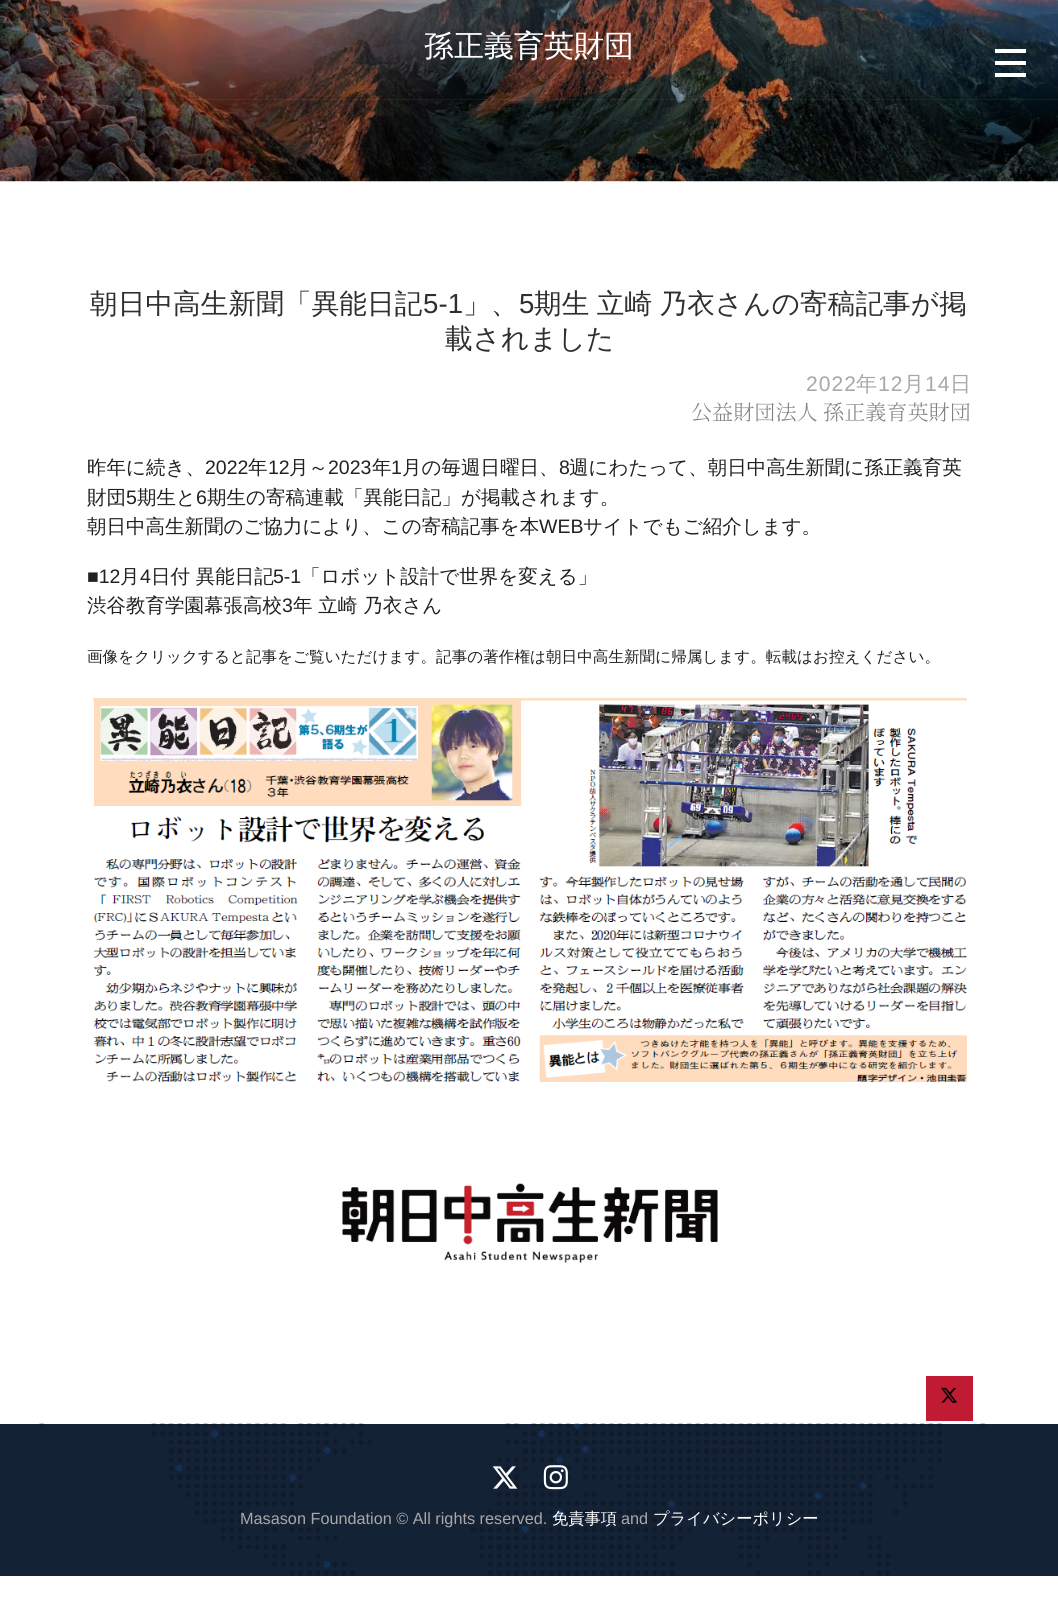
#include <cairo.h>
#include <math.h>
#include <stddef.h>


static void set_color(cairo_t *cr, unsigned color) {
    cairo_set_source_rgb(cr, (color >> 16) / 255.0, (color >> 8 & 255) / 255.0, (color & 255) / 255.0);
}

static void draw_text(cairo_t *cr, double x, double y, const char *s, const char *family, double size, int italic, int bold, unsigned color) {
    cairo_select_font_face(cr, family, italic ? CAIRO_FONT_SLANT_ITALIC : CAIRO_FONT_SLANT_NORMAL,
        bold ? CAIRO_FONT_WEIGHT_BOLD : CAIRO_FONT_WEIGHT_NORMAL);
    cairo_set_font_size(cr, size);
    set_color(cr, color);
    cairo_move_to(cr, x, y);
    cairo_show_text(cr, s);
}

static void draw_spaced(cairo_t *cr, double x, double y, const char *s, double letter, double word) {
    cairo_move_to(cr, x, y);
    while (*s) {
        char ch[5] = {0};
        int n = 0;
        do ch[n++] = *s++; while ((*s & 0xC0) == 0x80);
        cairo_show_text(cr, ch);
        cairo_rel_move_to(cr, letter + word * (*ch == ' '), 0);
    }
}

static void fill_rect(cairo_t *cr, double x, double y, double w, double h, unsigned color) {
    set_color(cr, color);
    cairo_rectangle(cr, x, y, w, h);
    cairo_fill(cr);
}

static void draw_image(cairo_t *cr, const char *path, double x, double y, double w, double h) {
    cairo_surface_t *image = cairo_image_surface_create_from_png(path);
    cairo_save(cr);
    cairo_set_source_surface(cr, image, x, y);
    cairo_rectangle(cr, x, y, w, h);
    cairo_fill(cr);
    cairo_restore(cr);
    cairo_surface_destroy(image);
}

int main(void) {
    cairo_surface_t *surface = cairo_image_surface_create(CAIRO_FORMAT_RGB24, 1058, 1609);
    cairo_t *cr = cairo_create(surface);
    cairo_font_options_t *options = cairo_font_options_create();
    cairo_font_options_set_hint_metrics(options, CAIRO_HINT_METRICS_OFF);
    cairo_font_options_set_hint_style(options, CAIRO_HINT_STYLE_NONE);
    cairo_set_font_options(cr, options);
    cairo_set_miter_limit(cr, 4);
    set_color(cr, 0xFFFFFF);
    cairo_paint(cr);
    draw_image(cr, "assets/img1.png", 0, 0, 1058, 182);
    cairo_set_source_rgba(cr, 1, 1, 1, 0.06);
    cairo_rectangle(cr, 0, 99, 1058, 1);
    cairo_fill(cr);
    draw_text(cr, 424, 56, "孫正義育英財団", "WenQuanYi Zen Hei Medium", 30, 0, 0, 0xFFFFFF);
    fill_rect(cr, 995, 49, 31, 4, 0xFFFFFF);
    fill_rect(cr, 995, 73, 31, 4, 0xFFFFFF);
    fill_rect(cr, 995, 61, 31, 4, 0xFFFFFF);
    cairo_set_font_size(cr, 27.6);
    set_color(cr, 0x2D2F31);
    draw_spaced(cr, 90, 313, "朝日中高生新聞「異能日記", 0.1, 0);
    cairo_select_font_face(cr, "Liberation Sans", CAIRO_FONT_SLANT_NORMAL, CAIRO_FONT_WEIGHT_NORMAL);
    draw_spaced(cr, 423, 313, "5-1", 0.1, 0);
    cairo_select_font_face(cr, "WenQuanYi Zen Hei Medium", CAIRO_FONT_SLANT_NORMAL, CAIRO_FONT_WEIGHT_NORMAL);
    draw_spaced(cr, 463, 313, "」、", 0.1, 0);
    cairo_select_font_face(cr, "Liberation Sans", CAIRO_FONT_SLANT_NORMAL, CAIRO_FONT_WEIGHT_NORMAL);
    draw_spaced(cr, 519, 313, "5", 0.1, 0);
    cairo_select_font_face(cr, "WenQuanYi Zen Hei Medium", CAIRO_FONT_SLANT_NORMAL, CAIRO_FONT_WEIGHT_NORMAL);
    draw_spaced(cr, 534, 313, "期生 立崎 乃衣さんの寄稿記事が掲", 0.1, -1);
    draw_spaced(cr, 445, 348, "載されました", 0.1, 0);
    cairo_select_font_face(cr, "Liberation Sans", CAIRO_FONT_SLANT_NORMAL, CAIRO_FONT_WEIGHT_NORMAL);
    cairo_set_font_size(cr, 21.1);
    set_color(cr, 0xA8A8A8);
    draw_spaced(cr, 806, 391, "2022", 1, 0);
    cairo_select_font_face(cr, "WenQuanYi Zen Hei Medium", CAIRO_FONT_SLANT_NORMAL, CAIRO_FONT_WEIGHT_NORMAL);
    draw_spaced(cr, 856, 391, "年", 1, 0);
    cairo_select_font_face(cr, "Liberation Sans", CAIRO_FONT_SLANT_NORMAL, CAIRO_FONT_WEIGHT_NORMAL);
    draw_spaced(cr, 878, 391, "12", 1, 0);
    cairo_select_font_face(cr, "WenQuanYi Zen Hei Medium", CAIRO_FONT_SLANT_NORMAL, CAIRO_FONT_WEIGHT_NORMAL);
    draw_spaced(cr, 903, 391, "月", 1, 0);
    cairo_select_font_face(cr, "Liberation Sans", CAIRO_FONT_SLANT_NORMAL, CAIRO_FONT_WEIGHT_NORMAL);
    draw_spaced(cr, 925, 391, "14", 1, 0);
    cairo_select_font_face(cr, "WenQuanYi Zen Hei Medium", CAIRO_FONT_SLANT_NORMAL, CAIRO_FONT_WEIGHT_NORMAL);
    draw_spaced(cr, 950, 391, "日", 1, 0);
    draw_text(cr, 691, 420, "公益財団法人 孫正義育英財団", "Noto Serif CJK JP Light", 21.1, 0, 0, 0x808080);
    draw_text(cr, 87, 474, "昨年に続き、", "WenQuanYi Zen Hei Medium", 19.5, 0, 0, 0x212121);
    draw_text(cr, 205, 474, "2022", "Liberation Sans", 19.5, 0, 0, 0x212121);
    draw_text(cr, 248, 474, "年", "WenQuanYi Zen Hei Medium", 19.5, 0, 0, 0x212121);
    draw_text(cr, 268, 474, "12", "Liberation Sans", 19.5, 0, 0, 0x212121);
    draw_text(cr, 289, 474, "月～", "WenQuanYi Zen Hei Medium", 19.5, 0, 0, 0x212121);
    draw_text(cr, 328, 474, "2023", "Liberation Sans", 19.5, 0, 0, 0x212121);
    draw_text(cr, 372, 474, "年", "WenQuanYi Zen Hei Medium", 19.5, 0, 0, 0x212121);
    draw_text(cr, 391, 474, "1", "Liberation Sans", 19.5, 0, 0, 0x212121);
    draw_text(cr, 402, 474, "月の毎週日曜日、", "WenQuanYi Zen Hei Medium", 19.5, 0, 0, 0x212121);
    draw_text(cr, 559, 474, "8", "Liberation Sans", 19.5, 0, 0, 0x212121);
    draw_text(cr, 569, 474, "週にわたって、朝日中高生新聞に孫正義育英", "WenQuanYi Zen Hei Medium", 19.5, 0, 0, 0x212121);
    draw_text(cr, 87, 504, "財団", "WenQuanYi Zen Hei Medium", 19.5, 0, 0, 0x212121);
    draw_text(cr, 126, 504, "5", "Liberation Sans", 19.5, 0, 0, 0x212121);
    draw_text(cr, 137, 504, "期生と", "WenQuanYi Zen Hei Medium", 19.5, 0, 0, 0x212121);
    draw_text(cr, 196, 504, "6", "Liberation Sans", 19.5, 0, 0, 0x212121);
    draw_text(cr, 207, 504, "期生の寄稿連載「異能日記」が掲載されます。", "WenQuanYi Zen Hei Medium", 19.5, 0, 0, 0x212121);
    draw_text(cr, 87, 533, "朝日中高生新聞のご協力により、この寄稿記事を本", "WenQuanYi Zen Hei Medium", 19.5, 0, 0, 0x212121);
    draw_text(cr, 539, 533, "WEB", "Liberation Sans", 19.5, 0, 0, 0x212121);
    draw_text(cr, 583, 533, "サイトでもご紹介します。", "WenQuanYi Zen Hei Medium", 19.5, 0, 0, 0x212121);
    draw_text(cr, 87, 583, "■12", "Liberation Sans", 19.5, 0, 0, 0x212121);
    draw_text(cr, 120, 583, "月", "WenQuanYi Zen Hei Medium", 19.5, 0, 0, 0x212121);
    draw_text(cr, 140, 583, "4", "Liberation Sans", 19.5, 0, 0, 0x212121);
    draw_text(cr, 151, 583, "日付 異能日記", "WenQuanYi Zen Hei Medium", 19.5, 0, 0, 0x212121);
    draw_text(cr, 273, 583, "5-1", "Liberation Sans", 19.5, 0, 0, 0x212121);
    draw_text(cr, 301, 583, "「ロボット設計で世界を変える」", "WenQuanYi Zen Hei Medium", 19.5, 0, 0, 0x212121);
    draw_text(cr, 87, 612, "渋谷教育学園幕張高校", "WenQuanYi Zen Hei Medium", 19.5, 0, 0, 0x212121);
    draw_text(cr, 282, 612, "3", "Liberation Sans", 19.5, 0, 0, 0x212121);
    draw_text(cr, 293, 612, "年 立崎 乃衣さん", "WenQuanYi Zen Hei Medium", 19.5, 0, 0, 0x212121);
    draw_text(cr, 87, 662, "画像をクリックすると記事をご覧いただけます。記事の著作権は朝日中高生新聞に帰属します。転載はお控えください。", "WenQuanYi Zen Hei Medium", 15.6, 0, 0, 0x212121);
    draw_image(cr, "assets/img2.png", 93, 698, 874, 384);
    draw_image(cr, "assets/img3.png", 342, 1183, 376, 80);
    fill_rect(cr, 926, 1376, 47, 45, 0xC01B33);
    draw_image(cr, "assets/img4.png", 941, 1387, 17, 16);
    fill_rect(cr, 0, 1424, 1058, 152, 0x142236);
    draw_image(cr, "assets/img5.png", 39, 1423, 947, 153);
    draw_image(cr, "assets/img6.png", 492, 1466, 26, 23);
    draw_image(cr, "assets/img7.png", 543, 1465, 25, 25);
    draw_text(cr, 240, 1524, "Masason Foundation © All rights reserved.", "Liberation Sans", 16.25, 0, 0, 0xA8A8A8);
    draw_text(cr, 552, 1524, "免責事項", "WenQuanYi Zen Hei Medium", 16.25, 0, 0, 0xFFFFFF);
    draw_text(cr, 621, 1524, "and", "Liberation Sans", 16.25, 0, 0, 0xA8A8A8);
    draw_text(cr, 653, 1524, "プライバシーポリシー", "WenQuanYi Zen Hei Medium", 16.25, 0, 0, 0xFFFFFF);
    cairo_surface_write_to_png(surface, "output.png");
    cairo_font_options_destroy(options);
    cairo_destroy(cr);
    cairo_surface_destroy(surface);
    return 0;
}
